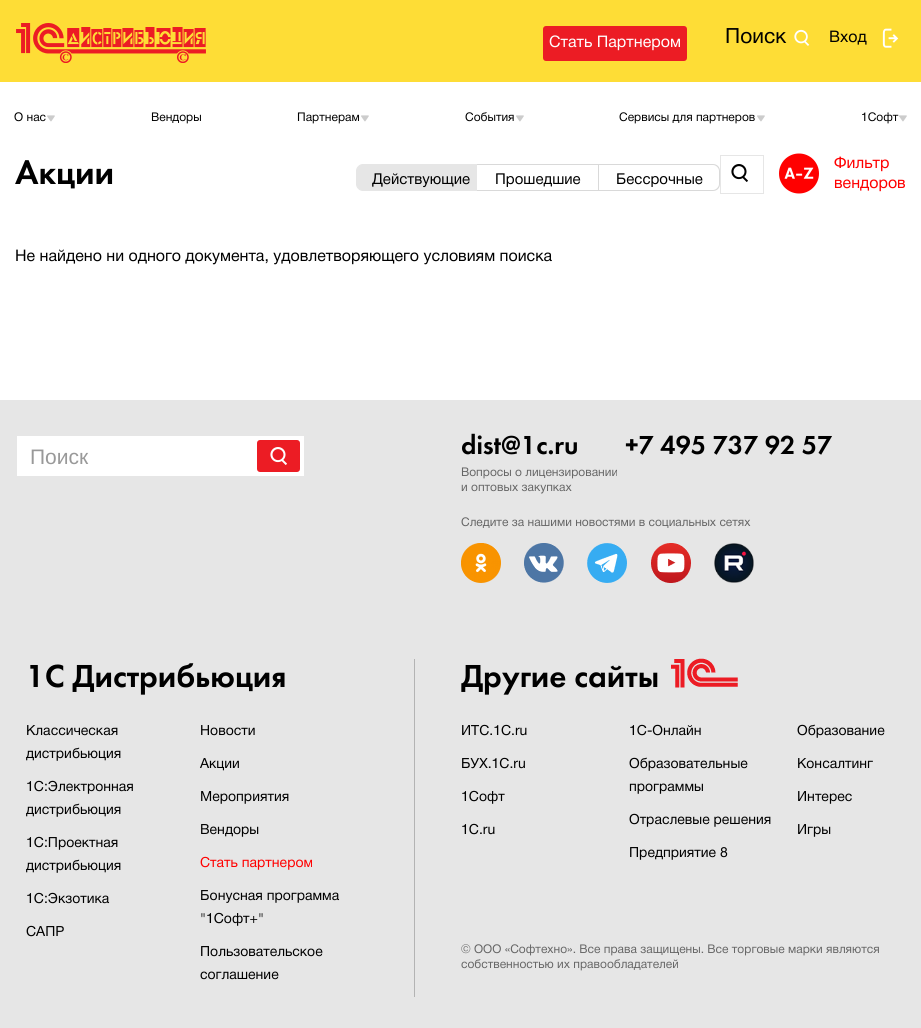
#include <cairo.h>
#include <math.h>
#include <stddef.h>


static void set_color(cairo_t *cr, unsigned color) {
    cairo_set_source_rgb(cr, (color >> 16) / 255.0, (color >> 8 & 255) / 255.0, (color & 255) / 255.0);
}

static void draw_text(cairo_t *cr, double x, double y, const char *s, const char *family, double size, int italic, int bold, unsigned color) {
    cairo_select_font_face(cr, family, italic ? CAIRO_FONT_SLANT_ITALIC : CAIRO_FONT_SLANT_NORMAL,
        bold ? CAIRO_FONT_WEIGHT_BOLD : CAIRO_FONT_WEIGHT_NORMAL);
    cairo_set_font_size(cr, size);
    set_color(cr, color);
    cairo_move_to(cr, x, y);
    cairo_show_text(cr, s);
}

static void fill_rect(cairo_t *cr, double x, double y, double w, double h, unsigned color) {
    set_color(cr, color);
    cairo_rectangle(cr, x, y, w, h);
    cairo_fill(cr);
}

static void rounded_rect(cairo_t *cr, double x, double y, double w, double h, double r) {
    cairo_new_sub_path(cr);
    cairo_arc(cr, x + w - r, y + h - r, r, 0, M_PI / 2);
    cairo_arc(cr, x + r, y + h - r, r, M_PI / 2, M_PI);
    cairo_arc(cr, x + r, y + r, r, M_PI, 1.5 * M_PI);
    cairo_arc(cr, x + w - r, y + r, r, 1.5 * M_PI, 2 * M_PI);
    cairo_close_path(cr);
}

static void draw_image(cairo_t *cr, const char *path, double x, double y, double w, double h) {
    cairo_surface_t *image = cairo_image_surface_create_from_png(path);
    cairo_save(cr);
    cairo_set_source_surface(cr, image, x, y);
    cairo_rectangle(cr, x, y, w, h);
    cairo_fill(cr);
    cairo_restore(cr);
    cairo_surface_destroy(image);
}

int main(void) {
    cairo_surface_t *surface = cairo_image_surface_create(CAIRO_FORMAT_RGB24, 921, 1028);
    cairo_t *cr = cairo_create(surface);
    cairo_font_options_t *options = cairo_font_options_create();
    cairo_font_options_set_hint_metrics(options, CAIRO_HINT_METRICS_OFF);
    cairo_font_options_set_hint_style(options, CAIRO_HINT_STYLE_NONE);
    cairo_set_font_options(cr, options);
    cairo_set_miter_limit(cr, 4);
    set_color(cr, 0xFFFFFF);
    cairo_paint(cr);
    fill_rect(cr, 0, 0, 921, 82, 0xFEDD36);
    draw_image(cr, "assets/img1.png", 16, 23, 190, 40);
    set_color(cr, 0xEC1C24);
    rounded_rect(cr, 543, 26, 144, 35, 3);
    cairo_fill(cr);
    draw_text(cr, 549, 47, "Стать Партнером", "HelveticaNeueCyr", 16, 0, 0, 0xFFFFFF);
    draw_text(cr, 725, 43, "Поиск", "HelveticaNeueCyr", 21, 0, 0, 0x000000);
    draw_image(cr, "assets/img2.png", 794, 29, 16, 17);
    draw_text(cr, 829, 42, "Вход", "HelveticaNeueCyr", 16, 0, 0, 0x000000);
    draw_image(cr, "assets/img3.png", 882, 28, 17, 20);
    draw_text(cr, 14, 121, "О нас", "HelveticaNeueCyr", 12, 0, 0, 0x000000);
    draw_image(cr, "assets/img4.png", 47, 115, 8, 7);
    draw_text(cr, 151, 121, "Вендоры", "HelveticaNeueCyr", 12, 0, 0, 0x000000);
    draw_text(cr, 297, 121, "Партнерам", "HelveticaNeueCyr", 12, 0, 0, 0x000000);
    draw_image(cr, "assets/img4.png", 361, 115, 8, 7);
    draw_text(cr, 465, 121, "События", "HelveticaNeueCyr", 12, 0, 0, 0x000000);
    draw_image(cr, "assets/img4.png", 516, 115, 8, 7);
    draw_text(cr, 619, 121, "Сервисы для партнеров", "HelveticaNeueCyr", 12, 0, 0, 0x000000);
    draw_image(cr, "assets/img4.png", 757, 115, 8, 7);
    draw_text(cr, 861, 121, "1Cофт", "HelveticaNeueCyr", 12, 0, 0, 0x000000);
    draw_image(cr, "assets/img4.png", 899, 115, 8, 7);
    draw_text(cr, 15, 184, "Акции", "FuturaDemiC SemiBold", 35, 0, 0, 0x000000);
    set_color(cr, 0xE6E6E6);
    cairo_new_path(cr);
    cairo_move_to(cr, 363, 164.5);
    cairo_line_to(cr, 476.5, 164.5);
    cairo_line_to(cr, 476.5, 190.5);
    cairo_line_to(cr, 363, 190.5);
    cairo_curve_to(cr, 359.5, 190.5, 356.5, 187.5, 356.5, 184);
    cairo_line_to(cr, 356.5, 171);
    cairo_curve_to(cr, 356.5, 167.5, 359.5, 164.5, 363, 164.5);
    cairo_close_path(cr);
    cairo_fill_preserve(cr);
    cairo_set_line_width(cr, 1);
    cairo_stroke(cr);
    draw_text(cr, 372, 184, "Действующие", "HelveticaNeueCyr", 15, 0, 0, 0x000000);
    fill_rect(cr, 477, 164, 122, 1, 0xD9D9D9);
    fill_rect(cr, 598, 164, 1, 27, 0xD9D9D9);
    fill_rect(cr, 477, 190, 122, 1, 0xD9D9D9);
    draw_text(cr, 495, 184, "Прошедшие", "HelveticaNeueCyr", 15, 0, 0, 0x000000);
    set_color(cr, 0xD9D9D9);
    cairo_set_fill_rule(cr, CAIRO_FILL_RULE_EVEN_ODD);
    cairo_new_path(cr);
    cairo_move_to(cr, 599, 164);
    cairo_line_to(cr, 713, 164);
    cairo_curve_to(cr, 717, 164, 720, 167, 720, 171);
    cairo_line_to(cr, 720, 184);
    cairo_curve_to(cr, 720, 188, 717, 191, 713, 191);
    cairo_line_to(cr, 599, 191);
    cairo_close_path(cr);
    cairo_move_to(cr, 599, 165);
    cairo_line_to(cr, 713, 165);
    cairo_curve_to(cr, 716, 165, 719, 168, 719, 171);
    cairo_line_to(cr, 719, 184);
    cairo_curve_to(cr, 719, 187, 716, 190, 713, 190);
    cairo_line_to(cr, 599, 190);
    cairo_close_path(cr);
    cairo_fill(cr);
    draw_text(cr, 616, 184, "Бессрочные", "HelveticaNeueCyr", 15, 0, 0, 0x000000);
    cairo_rectangle(cr, 720.5, 155.5, 43, 38);
    set_color(cr, 0xE6E6E6);
    cairo_stroke(cr);
    draw_image(cr, "assets/img5.png", 731, 164, 17, 18);
    draw_image(cr, "assets/img6.png", 779, 153, 40, 41);
    draw_text(cr, 834, 168, "Фильтр", "HelveticaNeueCyr", 16, 0, 0, 0xFF0000);
    draw_text(cr, 834, 188, "вендоров", "HelveticaNeueCyr", 16, 0, 0, 0xFF0000);
    draw_text(cr, 15, 261, "Не найдено ни одного документа, удовлетворяющего условиям поиска", "HelveticaNeueCyr", 16, 0, 0, 0x000000);
    fill_rect(cr, 0, 400, 921, 628, 0xE6E6E6);
    fill_rect(cr, 17, 436, 287, 40, 0xFFFFFF);
    draw_text(cr, 30, 464, "Поиск", "Liberation Sans", 21, 0, 0, 0x999999);
    set_color(cr, 0xEC1C24);
    rounded_rect(cr, 257, 440, 43, 32, 3);
    cairo_fill(cr);
    draw_image(cr, "assets/img7.png", 270, 447, 17, 18);
    draw_text(cr, 461, 454, "dist@1c.ru", "FuturaDemiC SemiBold", 27, 0, 0, 0x000000);
    draw_text(cr, 461, 476, "Вопросы о лицензировании", "HelveticaNeueCyr", 12, 0, 0, 0x666666);
    draw_text(cr, 461, 491, "и оптовых закупках", "HelveticaNeueCyr", 12, 0, 0, 0x666666);
    draw_text(cr, 625, 454, "+7 495 737 92 57", "FuturaDemiC SemiBold", 27, 0, 0, 0x000000);
    draw_text(cr, 461, 526, "Следите за нашими новостями в социальных сетях", "HelveticaNeueCyr", 12, 0, 0, 0x666666);
    draw_image(cr, "assets/img8.png", 461, 543, 40, 40);
    draw_image(cr, "assets/img9.png", 524, 543, 40, 40);
    draw_image(cr, "assets/img10.png", 587, 543, 40, 40);
    draw_image(cr, "assets/img11.png", 651, 543, 40, 40);
    draw_image(cr, "assets/img12.png", 714, 543, 40, 40);
    draw_text(cr, 26, 687, "1С Дистрибьюция", "FuturaDemiC SemiBold", 33, 0, 0, 0x000000);
    draw_text(cr, 26, 735, "Классическая", "HelveticaNeueCyr", 14, 0, 0, 0x000000);
    draw_text(cr, 26, 758, "дистрибьюция", "HelveticaNeueCyr", 14, 0, 0, 0x000000);
    draw_text(cr, 26, 791, "1С:Электронная", "HelveticaNeueCyr", 14, 0, 0, 0x000000);
    draw_text(cr, 26, 814, "дистрибьюция", "HelveticaNeueCyr", 14, 0, 0, 0x000000);
    draw_text(cr, 26, 847, "1С:Проектная", "HelveticaNeueCyr", 14, 0, 0, 0x000000);
    draw_text(cr, 26, 870, "дистрибьюция", "HelveticaNeueCyr", 14, 0, 0, 0x000000);
    draw_text(cr, 26, 903, "1С:Экзотика", "HelveticaNeueCyr", 14, 0, 0, 0x000000);
    draw_text(cr, 26, 936, "САПР", "HelveticaNeueCyr", 14, 0, 0, 0x000000);
    draw_text(cr, 200, 735, "Новости", "HelveticaNeueCyr", 14, 0, 0, 0x000000);
    draw_text(cr, 200, 768, "Акции", "HelveticaNeueCyr", 14, 0, 0, 0x000000);
    draw_text(cr, 200, 801, "Мероприятия", "HelveticaNeueCyr", 14, 0, 0, 0x000000);
    draw_text(cr, 200, 834, "Вендоры", "HelveticaNeueCyr", 14, 0, 0, 0x000000);
    draw_text(cr, 200, 867, "Стать партнером", "HelveticaNeueCyr", 14, 0, 0, 0xFF0000);
    draw_text(cr, 200, 900, "Бонусная программа", "HelveticaNeueCyr", 14, 0, 0, 0x000000);
    draw_text(cr, 200, 923, "\"1Софт+\"", "HelveticaNeueCyr", 14, 0, 0, 0x000000);
    draw_text(cr, 200, 956, "Пользовательское", "HelveticaNeueCyr", 14, 0, 0, 0x000000);
    draw_text(cr, 200, 979, "соглашение", "HelveticaNeueCyr", 14, 0, 0, 0x000000);
    fill_rect(cr, 414, 659, 1, 338, 0xB3B3B3);
    draw_text(cr, 461, 687, "Другие сайты", "FuturaDemiC SemiBold", 33, 0, 0, 0x000000);
    draw_image(cr, "assets/img13.png", 671, 658, 67, 30);
    draw_text(cr, 461, 735, "ИTC.1C.ru", "HelveticaNeueCyr", 14, 0, 0, 0x000000);
    draw_text(cr, 461, 768, "БУХ.1C.ru", "HelveticaNeueCyr", 14, 0, 0, 0x000000);
    draw_text(cr, 461, 801, "1Софт", "HelveticaNeueCyr", 14, 0, 0, 0x000000);
    draw_text(cr, 461, 834, "1C.ru", "HelveticaNeueCyr", 14, 0, 0, 0x000000);
    draw_text(cr, 629, 735, "1С-Онлайн", "HelveticaNeueCyr", 14, 0, 0, 0x000000);
    draw_text(cr, 629, 768, "Образовательные", "HelveticaNeueCyr", 14, 0, 0, 0x000000);
    draw_text(cr, 629, 791, "программы", "HelveticaNeueCyr", 14, 0, 0, 0x000000);
    draw_text(cr, 629, 824, "Отраслевые решения", "HelveticaNeueCyr", 14, 0, 0, 0x000000);
    draw_text(cr, 629, 857, "Предприятие 8", "HelveticaNeueCyr", 14, 0, 0, 0x000000);
    draw_text(cr, 797, 735, "Образование", "HelveticaNeueCyr", 14, 0, 0, 0x000000);
    draw_text(cr, 797, 768, "Консалтинг", "HelveticaNeueCyr", 14, 0, 0, 0x000000);
    draw_text(cr, 797, 801, "Интерес", "HelveticaNeueCyr", 14, 0, 0, 0x000000);
    draw_text(cr, 797, 834, "Игры", "HelveticaNeueCyr", 14, 0, 0, 0x000000);
    draw_text(cr, 461, 953, "© ООО «Софтехно». Все права защищены. Все торговые марки являются", "HelveticaNeueCyr", 12, 0, 0, 0x666666);
    draw_text(cr, 461, 968, "собственностью их правообладателей", "HelveticaNeueCyr", 12, 0, 0, 0x666666);
    cairo_surface_write_to_png(surface, "output.png");
    cairo_font_options_destroy(options);
    cairo_destroy(cr);
    cairo_surface_destroy(surface);
    return 0;
}
